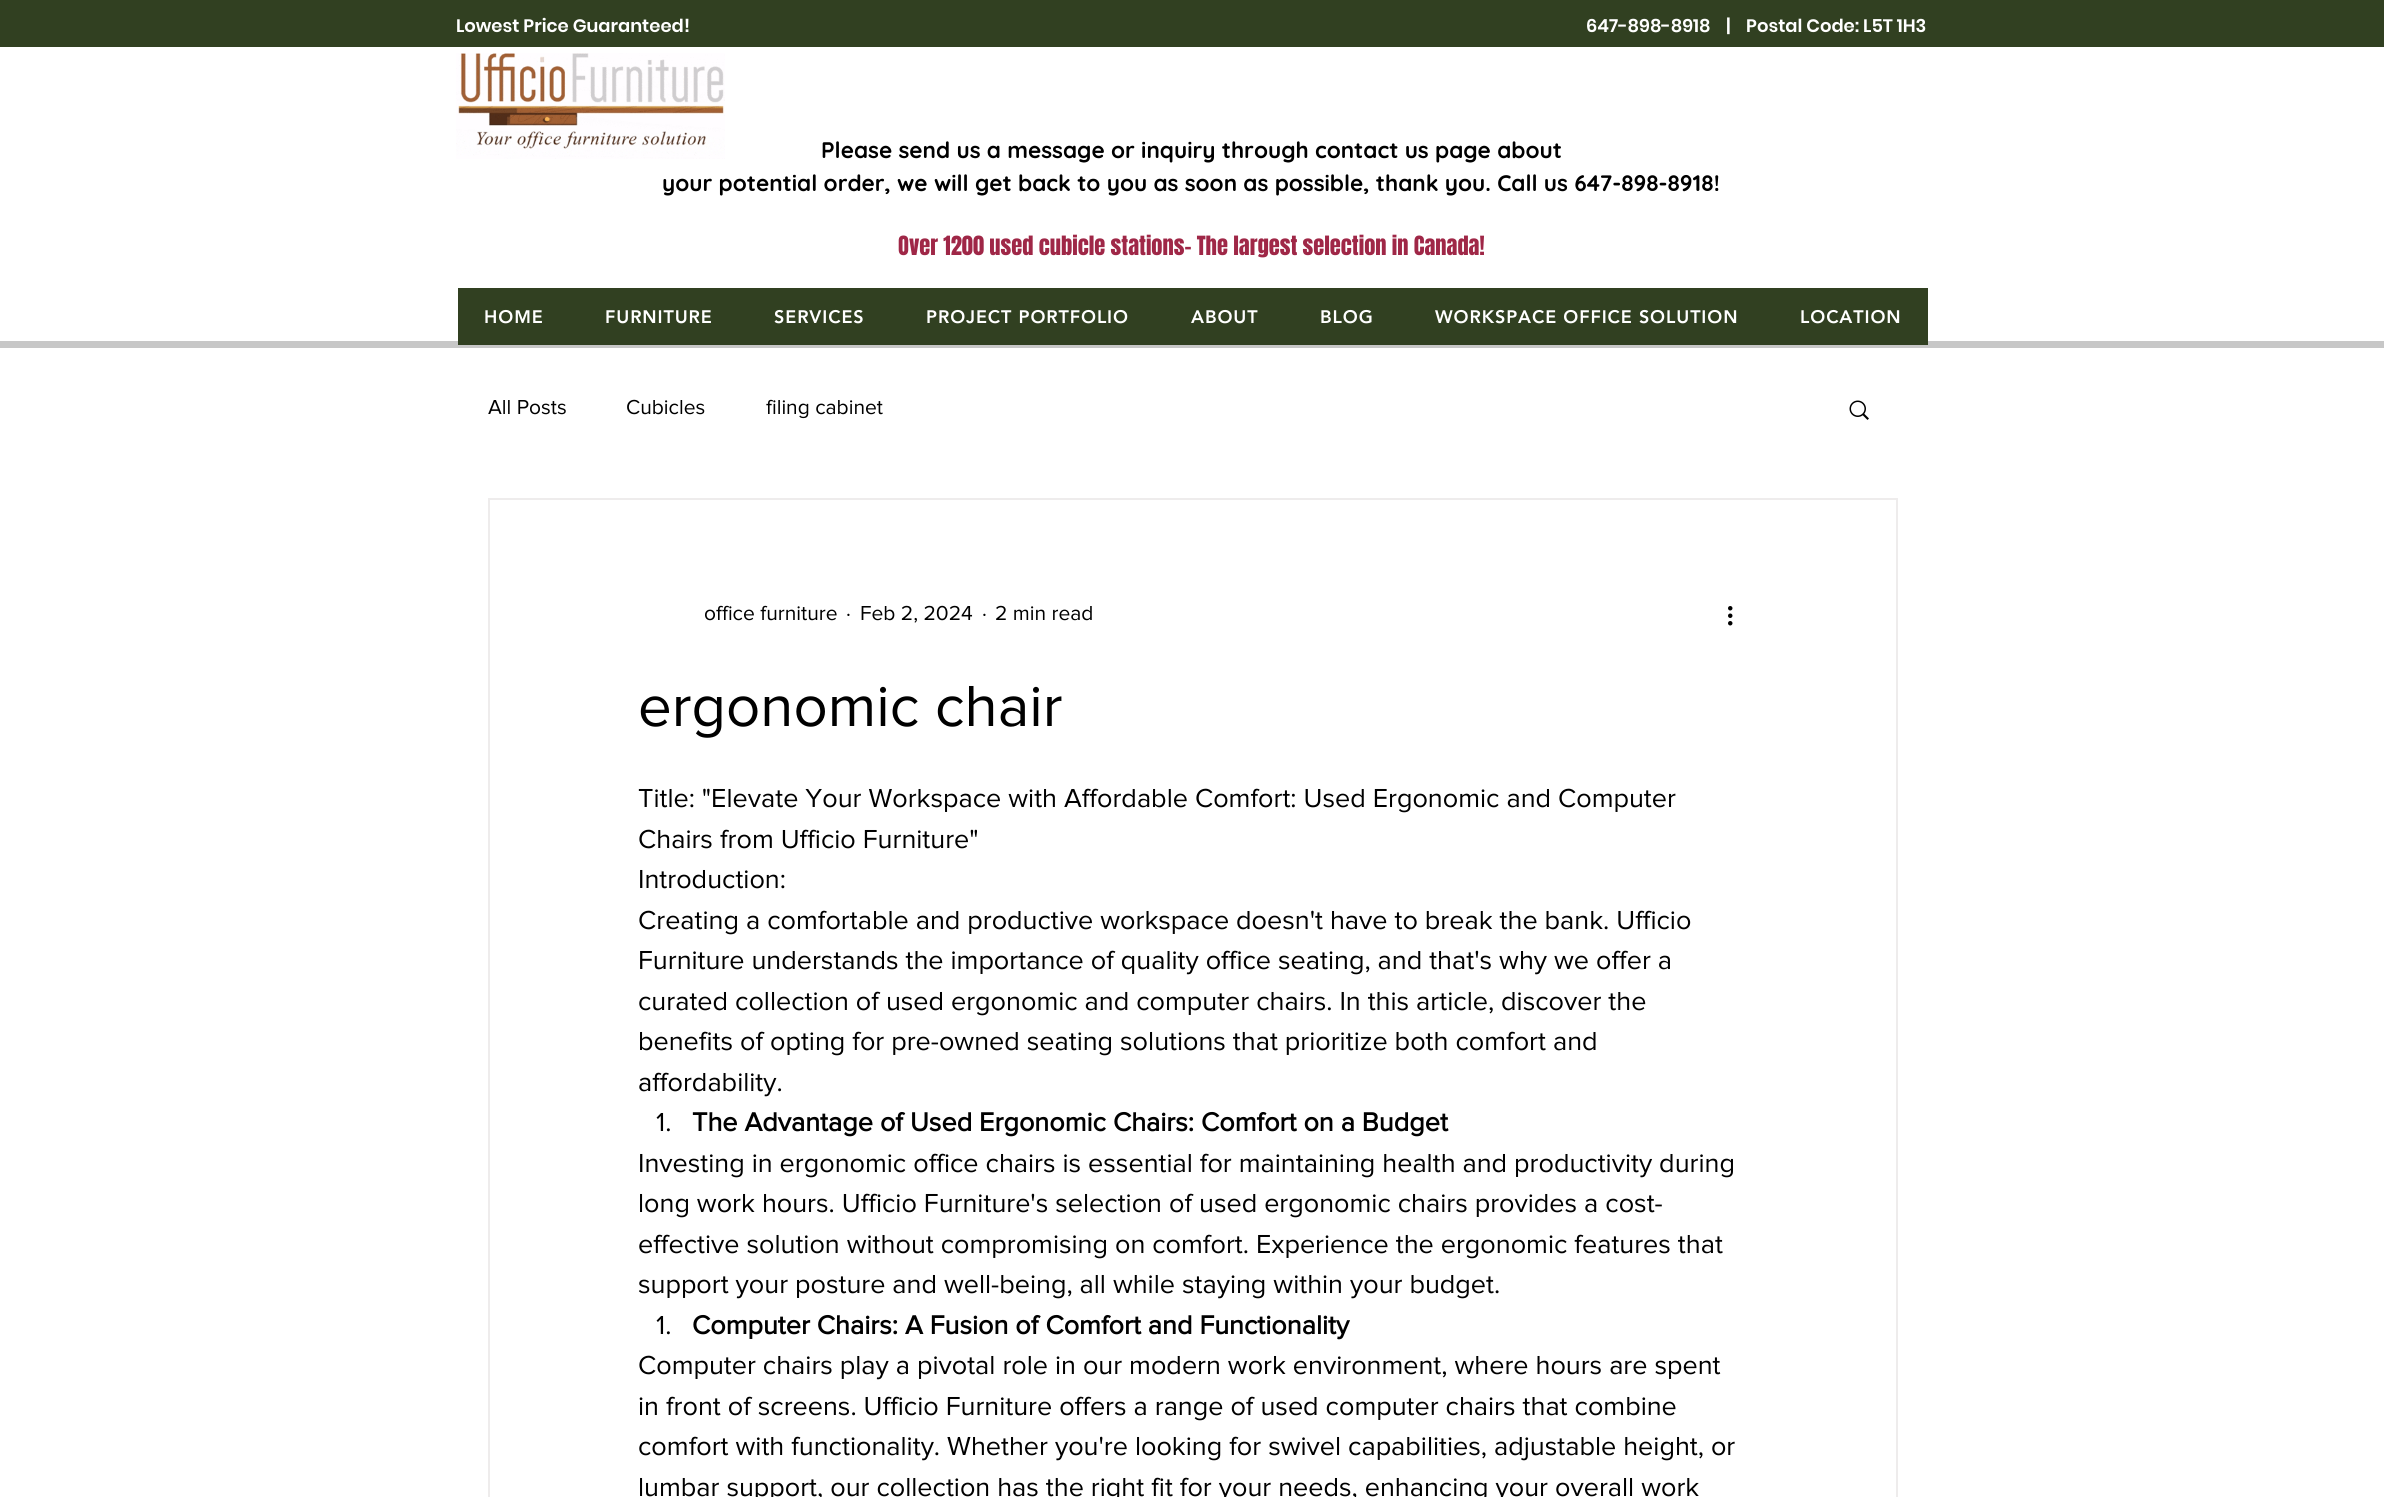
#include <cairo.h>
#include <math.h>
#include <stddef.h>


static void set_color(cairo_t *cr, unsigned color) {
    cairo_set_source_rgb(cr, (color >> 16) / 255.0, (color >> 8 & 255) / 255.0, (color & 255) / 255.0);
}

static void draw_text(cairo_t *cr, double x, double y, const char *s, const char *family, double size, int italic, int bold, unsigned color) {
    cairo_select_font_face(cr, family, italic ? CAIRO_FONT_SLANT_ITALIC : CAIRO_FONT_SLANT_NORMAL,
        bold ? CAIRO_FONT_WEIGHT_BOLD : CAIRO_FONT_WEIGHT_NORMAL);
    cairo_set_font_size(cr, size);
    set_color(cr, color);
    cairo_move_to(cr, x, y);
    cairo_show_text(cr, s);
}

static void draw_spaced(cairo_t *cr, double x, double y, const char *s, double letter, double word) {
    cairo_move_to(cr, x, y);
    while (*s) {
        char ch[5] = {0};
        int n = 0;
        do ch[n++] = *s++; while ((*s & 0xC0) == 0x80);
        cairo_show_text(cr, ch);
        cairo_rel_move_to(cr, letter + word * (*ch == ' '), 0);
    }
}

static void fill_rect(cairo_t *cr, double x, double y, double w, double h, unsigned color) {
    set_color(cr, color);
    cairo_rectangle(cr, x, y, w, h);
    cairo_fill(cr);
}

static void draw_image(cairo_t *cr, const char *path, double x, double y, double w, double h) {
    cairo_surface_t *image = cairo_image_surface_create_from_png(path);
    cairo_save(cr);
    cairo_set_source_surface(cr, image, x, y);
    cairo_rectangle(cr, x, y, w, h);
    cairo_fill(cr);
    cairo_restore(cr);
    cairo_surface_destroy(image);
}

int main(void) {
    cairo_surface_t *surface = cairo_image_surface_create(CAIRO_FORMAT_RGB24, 2384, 1497);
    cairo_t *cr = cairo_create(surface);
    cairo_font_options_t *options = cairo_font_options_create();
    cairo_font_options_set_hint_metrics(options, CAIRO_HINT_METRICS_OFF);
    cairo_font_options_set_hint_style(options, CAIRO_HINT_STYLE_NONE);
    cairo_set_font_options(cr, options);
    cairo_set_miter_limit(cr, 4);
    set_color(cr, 0xFFFFFF);
    cairo_paint(cr);
    fill_rect(cr, 0, 0, 2384, 47, 0x314021);
    draw_text(cr, 456, 32, "Lowest Price Guaranteed!", "Poppins SemiBold", 18, 0, 0, 0xFFFFFF);
    draw_text(cr, 1586, 32, "647-898-8918    |    Postal Code: L5T 1H3", "Poppins SemiBold", 18, 0, 0, 0xFFFFFF);
    draw_image(cr, "assets/img1.png", 456, 53, 269, 106);
    draw_text(cr, 821, 158, "Please send us a message or inquiry through contact us page about", "Quicksand", 22.5, 0, 1, 0x000000);
    draw_text(cr, 662, 191, "your potential order, we will get back to you as soon as possible, thank you. Call us 647-898-8918!", "Quicksand", 22.5, 0, 1, 0x000000);
    draw_text(cr, 898, 255, "Over 1200 used cubicle stations- The largest selection in Canada!", "Anton", 22.5, 0, 0, 0x9F2747);
    fill_rect(cr, 0, 341, 2384, 7, 0xC7C7C7);
    fill_rect(cr, 458, 288, 1470, 57, 0x314021);
    cairo_select_font_face(cr, "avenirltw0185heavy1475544 Black", CAIRO_FONT_SLANT_NORMAL, CAIRO_FONT_WEIGHT_NORMAL);
    cairo_set_font_size(cr, 18);
    set_color(cr, 0xFFFFFF);
    draw_spaced(cr, 484, 323, "HOME", 0.9, 0);
    draw_spaced(cr, 605, 323, "FURNITURE", 0.9, 0);
    draw_spaced(cr, 774, 323, "SERVICES", 0.9, 0);
    draw_spaced(cr, 926, 323, "PROJECT PORTFOLIO", 0.9, 0);
    draw_spaced(cr, 1191, 323, "ABOUT", 0.9, 0);
    draw_spaced(cr, 1320, 323, "BLOG", 0.9, 0);
    draw_spaced(cr, 1435, 323, "WORKSPACE OFFICE SOLUTION", 0.9, 0);
    draw_spaced(cr, 1800, 323, "LOCATION", 0.9, 0);
    draw_text(cr, 488, 414, "All Posts", "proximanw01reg", 21, 0, 0, 0x000000);
    draw_text(cr, 626, 414, "Cubicles", "proximanw01reg", 21, 0, 0, 0x000000);
    draw_text(cr, 766, 414, "filing cabinet", "proximanw01reg", 21, 0, 0, 0x000000);
    draw_image(cr, "assets/img2.png", 1849, 400, 20, 20);
    cairo_rectangle(cr, 489, 499, 1408, 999);
    set_color(cr, 0xEEECEC);
    cairo_stroke(cr);
    draw_text(cr, 704, 620, "office furniture", "proximanw01reg", 21, 0, 0, 0x000000);
    draw_text(cr, 846, 620, "·", "proximanw01reg", 21, 0, 0, 0x000000);
    draw_text(cr, 860, 620, "Feb 2, 2024", "proximanw01reg", 21, 0, 0, 0x000000);
    draw_text(cr, 982, 620, "·", "proximanw01reg", 21, 0, 0, 0x000000);
    draw_text(cr, 995, 620, "2 min read", "proximanw01reg", 21, 0, 0, 0x000000);
    draw_image(cr, "assets/img3.png", 1728, 606, 5, 20);
    draw_text(cr, 638, 726, "ergonomic chair", "proximanw01reg", 60, 0, 0, 0x000000);
    draw_text(cr, 638, 807, "Title: \"Elevate Your Workspace with Affordable Comfort: Used Ergonomic and Computer", "proximanw01reg", 27, 0, 0, 0x000000);
    draw_text(cr, 638, 848, "Chairs from Ufficio Furniture\"", "proximanw01reg", 27, 0, 0, 0x000000);
    draw_text(cr, 638, 888, "Introduction:", "proximanw01reg", 27, 0, 0, 0x000000);
    draw_text(cr, 638, 929, "Creating a comfortable and productive workspace doesn't have to break the bank. Ufficio", "proximanw01reg", 27, 0, 0, 0x000000);
    draw_text(cr, 638, 969, "Furniture understands the importance of quality office seating, and that's why we offer a", "proximanw01reg", 27, 0, 0, 0x000000);
    draw_text(cr, 638, 1010, "curated collection of used ergonomic and computer chairs. In this article, discover the", "proximanw01reg", 27, 0, 0, 0x000000);
    draw_text(cr, 638, 1050, "benefits of opting for pre-owned seating solutions that prioritize both comfort and", "proximanw01reg", 27, 0, 0, 0x000000);
    draw_text(cr, 638, 1091, "affordability.", "proximanw01reg", 27, 0, 0, 0x000000);
    draw_text(cr, 656, 1131, "1.", "proximanw01reg", 27, 0, 0, 0x000000);
    draw_text(cr, 692, 1131, "The Advantage of Used Ergonomic Chairs: Comfort on a Budget", "proximanw01reg", 27, 0, 1, 0x000000);
    draw_text(cr, 638, 1172, "Investing in ergonomic office chairs is essential for maintaining health and productivity during", "proximanw01reg", 27, 0, 0, 0x000000);
    draw_text(cr, 638, 1212, "long work hours. Ufficio Furniture's selection of used ergonomic chairs provides a cost-", "proximanw01reg", 27, 0, 0, 0x000000);
    draw_text(cr, 638, 1253, "effective solution without compromising on comfort. Experience the ergonomic features that", "proximanw01reg", 27, 0, 0, 0x000000);
    draw_text(cr, 638, 1293, "support your posture and well-being, all while staying within your budget.", "proximanw01reg", 27, 0, 0, 0x000000);
    draw_text(cr, 656, 1334, "1.", "proximanw01reg", 27, 0, 0, 0x000000);
    draw_text(cr, 692, 1334, "Computer Chairs: A Fusion of Comfort and Functionality", "proximanw01reg", 27, 0, 1, 0x000000);
    draw_text(cr, 638, 1374, "Computer chairs play a pivotal role in our modern work environment, where hours are spent", "proximanw01reg", 27, 0, 0, 0x000000);
    draw_text(cr, 638, 1415, "in front of screens. Ufficio Furniture offers a range of used computer chairs that combine", "proximanw01reg", 27, 0, 0, 0x000000);
    draw_text(cr, 638, 1455, "comfort with functionality. Whether you're looking for swivel capabilities, adjustable height, or", "proximanw01reg", 27, 0, 0, 0x000000);
    draw_text(cr, 638, 1496, "lumbar support, our collection has the right fit for your needs, enhancing your overall work", "proximanw01reg", 27, 0, 0, 0x000000);
    cairo_surface_write_to_png(surface, "output.png");
    cairo_font_options_destroy(options);
    cairo_destroy(cr);
    cairo_surface_destroy(surface);
    return 0;
}
